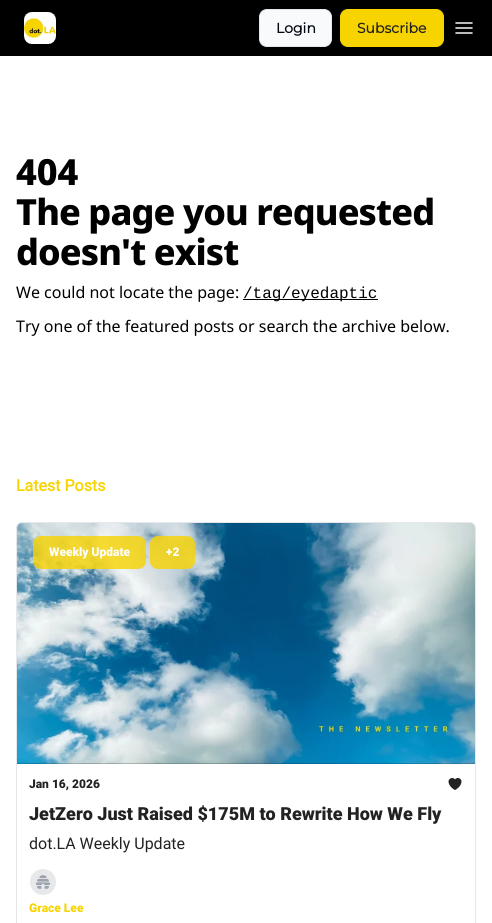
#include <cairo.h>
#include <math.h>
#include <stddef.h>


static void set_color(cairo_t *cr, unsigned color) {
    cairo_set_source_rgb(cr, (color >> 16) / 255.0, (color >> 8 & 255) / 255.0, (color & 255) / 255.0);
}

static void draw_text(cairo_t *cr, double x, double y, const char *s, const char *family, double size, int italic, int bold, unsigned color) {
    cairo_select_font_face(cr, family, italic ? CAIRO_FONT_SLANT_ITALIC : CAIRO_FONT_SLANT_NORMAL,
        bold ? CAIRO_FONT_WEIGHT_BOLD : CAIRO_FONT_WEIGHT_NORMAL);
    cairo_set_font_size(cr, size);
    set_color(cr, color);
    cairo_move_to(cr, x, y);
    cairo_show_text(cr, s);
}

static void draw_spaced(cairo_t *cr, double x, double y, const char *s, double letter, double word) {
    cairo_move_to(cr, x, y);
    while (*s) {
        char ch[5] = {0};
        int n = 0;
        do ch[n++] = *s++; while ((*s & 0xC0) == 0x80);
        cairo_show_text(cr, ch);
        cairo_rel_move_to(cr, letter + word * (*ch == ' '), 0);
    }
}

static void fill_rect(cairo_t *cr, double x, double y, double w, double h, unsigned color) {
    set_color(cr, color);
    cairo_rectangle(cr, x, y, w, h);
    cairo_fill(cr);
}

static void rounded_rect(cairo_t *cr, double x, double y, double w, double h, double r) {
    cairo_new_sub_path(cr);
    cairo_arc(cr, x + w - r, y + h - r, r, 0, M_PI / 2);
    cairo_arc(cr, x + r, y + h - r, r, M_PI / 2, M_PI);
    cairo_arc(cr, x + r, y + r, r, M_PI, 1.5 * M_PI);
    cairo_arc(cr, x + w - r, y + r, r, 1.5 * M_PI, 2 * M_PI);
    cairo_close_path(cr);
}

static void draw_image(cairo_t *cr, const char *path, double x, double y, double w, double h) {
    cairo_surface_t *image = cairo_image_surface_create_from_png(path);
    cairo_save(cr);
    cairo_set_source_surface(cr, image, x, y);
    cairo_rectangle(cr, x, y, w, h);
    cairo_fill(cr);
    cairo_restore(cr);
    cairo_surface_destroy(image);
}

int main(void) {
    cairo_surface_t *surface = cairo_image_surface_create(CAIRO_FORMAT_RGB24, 492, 923);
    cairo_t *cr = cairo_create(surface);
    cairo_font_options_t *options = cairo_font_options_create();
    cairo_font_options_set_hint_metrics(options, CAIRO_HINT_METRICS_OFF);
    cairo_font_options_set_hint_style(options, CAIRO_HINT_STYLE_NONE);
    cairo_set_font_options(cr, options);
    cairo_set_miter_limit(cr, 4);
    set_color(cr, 0xFFFFFF);
    cairo_paint(cr);
    fill_rect(cr, 0, 0, 492, 56, 0x000000);
    draw_image(cr, "assets/img1.png", 24, 12, 32, 32);
    set_color(cr, 0xF9FAFB);
    rounded_rect(cr, 259.5, 9.5, 72, 37, 7.5);
    cairo_fill_preserve(cr);
    set_color(cr, 0xE5E7EB);
    cairo_set_line_width(cr, 1);
    cairo_stroke(cr);
    draw_text(cr, 276, 33, "Login", "Montserrat", 14, 0, 1, 0x030712);
    set_color(cr, 0xF7D300);
    rounded_rect(cr, 340.5, 9.5, 103, 37, 7.5);
    cairo_fill_preserve(cr);
    cairo_stroke(cr);
    draw_text(cr, 357, 33, "Subscribe", "Montserrat", 14, 0, 1, 0x222222);
    cairo_new_path(cr);
    cairo_move_to(cr, 456, 23);
    cairo_line_to(cr, 472, 23);
    cairo_move_to(cr, 456, 28);
    cairo_line_to(cr, 472, 28);
    cairo_move_to(cr, 456, 33);
    cairo_line_to(cr, 472, 33);
    set_color(cr, 0xFFFFFF);
    cairo_set_line_width(cr, 1.5);
    cairo_set_line_cap(cr, CAIRO_LINE_CAP_ROUND);
    cairo_set_line_join(cr, CAIRO_LINE_JOIN_ROUND);
    cairo_stroke(cr);
    draw_text(cr, 16, 185, "404", "Noto Sans ExtraBold", 36, 0, 0, 0x000000);
    draw_spaced(cr, 16, 225, "The page you requested", -0.9, 0);
    draw_spaced(cr, 16, 265, "doesn't exist", -0.9, 0);
    draw_text(cr, 16, 298, "We could not locate the page:", "Noto Sans", 16, 0, 0, 0x000000);
    fill_rect(cr, 243, 299, 135, 1, 0x000000);
    draw_text(cr, 243, 298, "/tag/eyedaptic", "Liberation Mono", 16, 0, 0, 0x000000);
    draw_text(cr, 16, 332, "Try one of the featured posts or search the archive below.", "Noto Sans", 16, 0, 0, 0x000000);
    draw_text(cr, 16, 491, "Latest Posts", "Roboto", 16, 0, 1, 0xF7D300);
    rounded_rect(cr, 16.5, 522.5, 459, 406, 5.5);
    set_color(cr, 0xE5E7EB);
    cairo_set_line_width(cr, 1);
    cairo_set_line_cap(cr, CAIRO_LINE_CAP_BUTT);
    cairo_set_line_join(cr, CAIRO_LINE_JOIN_MITER);
    cairo_stroke(cr);
    draw_image(cr, "assets/img2.png", 17, 523, 458, 241);
    cairo_set_source_rgba(cr, 0.969, 0.827, 0, 0.8);
    rounded_rect(cr, 33, 536, 113, 33, 8);
    cairo_fill(cr);
    draw_text(cr, 49, 556, "Weekly Update", "Roboto Black", 12, 0, 0, 0xFFFFFF);
    cairo_set_source_rgba(cr, 0.969, 0.827, 0, 0.8);
    rounded_rect(cr, 150, 536, 45, 33, 8);
    cairo_fill(cr);
    draw_text(cr, 166, 556, "+2", "Roboto Black", 12, 0, 0, 0xFFFFFF);
    draw_text(cr, 29, 788, "Jan 16, 2026", "Roboto Black", 12, 0, 0, 0x222222);
    draw_image(cr, "assets/img3.png", 448, 778, 14, 12);
    draw_text(cr, 29, 820, "JetZero Just Raised $175M to Rewrite How We Fly", "Roboto Black", 18, 0, 0, 0x222222);
    draw_text(cr, 29, 849, "dot.LA Weekly Update", "Roboto", 16, 0, 0, 0x222222);
    draw_image(cr, "assets/img4.png", 30, 869, 26, 26);
    draw_text(cr, 29, 912, "Grace Lee", "Roboto Black", 12, 0, 0, 0xF7D300);
    cairo_surface_write_to_png(surface, "output.png");
    cairo_font_options_destroy(options);
    cairo_destroy(cr);
    cairo_surface_destroy(surface);
    return 0;
}
